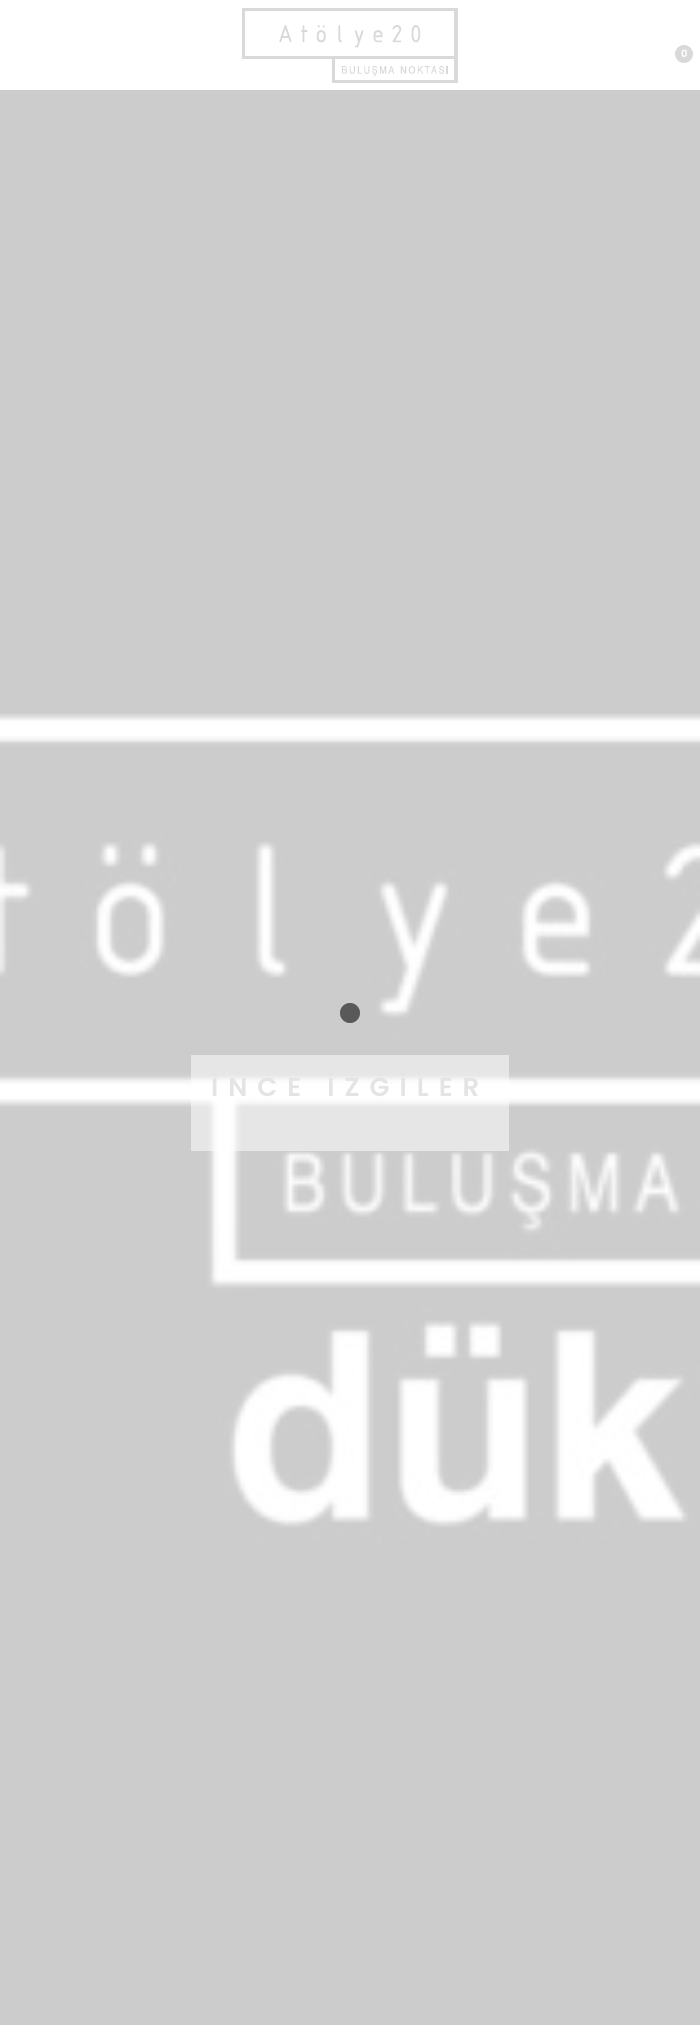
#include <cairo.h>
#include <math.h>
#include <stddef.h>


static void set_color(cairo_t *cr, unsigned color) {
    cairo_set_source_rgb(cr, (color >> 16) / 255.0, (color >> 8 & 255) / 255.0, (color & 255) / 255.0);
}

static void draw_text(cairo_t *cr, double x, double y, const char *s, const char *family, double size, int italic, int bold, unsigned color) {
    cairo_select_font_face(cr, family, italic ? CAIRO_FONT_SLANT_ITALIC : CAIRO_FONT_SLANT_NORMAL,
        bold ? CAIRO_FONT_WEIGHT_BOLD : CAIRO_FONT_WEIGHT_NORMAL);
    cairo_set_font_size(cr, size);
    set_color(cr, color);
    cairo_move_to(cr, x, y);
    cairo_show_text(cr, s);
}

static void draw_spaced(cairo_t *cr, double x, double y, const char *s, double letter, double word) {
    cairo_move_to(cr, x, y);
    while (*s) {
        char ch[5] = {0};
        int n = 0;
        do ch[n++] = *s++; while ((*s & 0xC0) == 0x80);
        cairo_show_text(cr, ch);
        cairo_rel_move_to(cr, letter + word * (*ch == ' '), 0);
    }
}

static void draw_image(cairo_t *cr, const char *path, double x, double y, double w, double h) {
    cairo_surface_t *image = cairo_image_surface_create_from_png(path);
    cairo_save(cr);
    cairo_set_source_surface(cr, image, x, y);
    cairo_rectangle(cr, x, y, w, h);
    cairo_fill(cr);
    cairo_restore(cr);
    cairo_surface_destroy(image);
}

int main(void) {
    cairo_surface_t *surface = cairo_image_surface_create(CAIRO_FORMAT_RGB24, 700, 2025);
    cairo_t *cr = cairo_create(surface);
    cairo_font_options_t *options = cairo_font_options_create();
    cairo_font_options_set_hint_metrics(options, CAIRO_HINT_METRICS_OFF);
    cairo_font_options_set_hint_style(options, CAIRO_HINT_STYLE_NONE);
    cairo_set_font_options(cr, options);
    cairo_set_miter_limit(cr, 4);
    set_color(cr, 0xFFFFFF);
    cairo_paint(cr);
    draw_image(cr, "assets/img1.png", 242, 8, 216, 75);
    set_color(cr, 0xDAD9D9);
    cairo_arc(cr, 684, 54, 9, 0, 2 * M_PI);
    cairo_fill(cr);
    draw_text(cr, 681, 57, "0", "Poppins SemiBold", 10, 0, 0, 0xFFFFFF);
    draw_image(cr, "assets/img2.png", 0, 90, 700, 1935);
    set_color(cr, 0x7A7A7A);
    cairo_arc(cr, 350, 1013, 10, 0, 2 * M_PI);
    cairo_fill(cr);
    cairo_set_source_rgba(cr, 0.267, 0.263, 0.263, 0.6);
    cairo_arc(cr, 350, 1013, 10, 0, 2 * M_PI);
    cairo_fill(cr);
    cairo_set_source_rgba(cr, 1, 1, 1, 0.5);
    cairo_rectangle(cr, 191, 1055, 318, 96);
    cairo_fill(cr);
    cairo_set_font_size(cr, 26);
    set_color(cr, 0xE4E4E4);
    draw_spaced(cr, 211, 1096, "İNCE İZGİLER", 10, 0);
    cairo_surface_write_to_png(surface, "output.png");
    cairo_font_options_destroy(options);
    cairo_destroy(cr);
    cairo_surface_destroy(surface);
    return 0;
}
